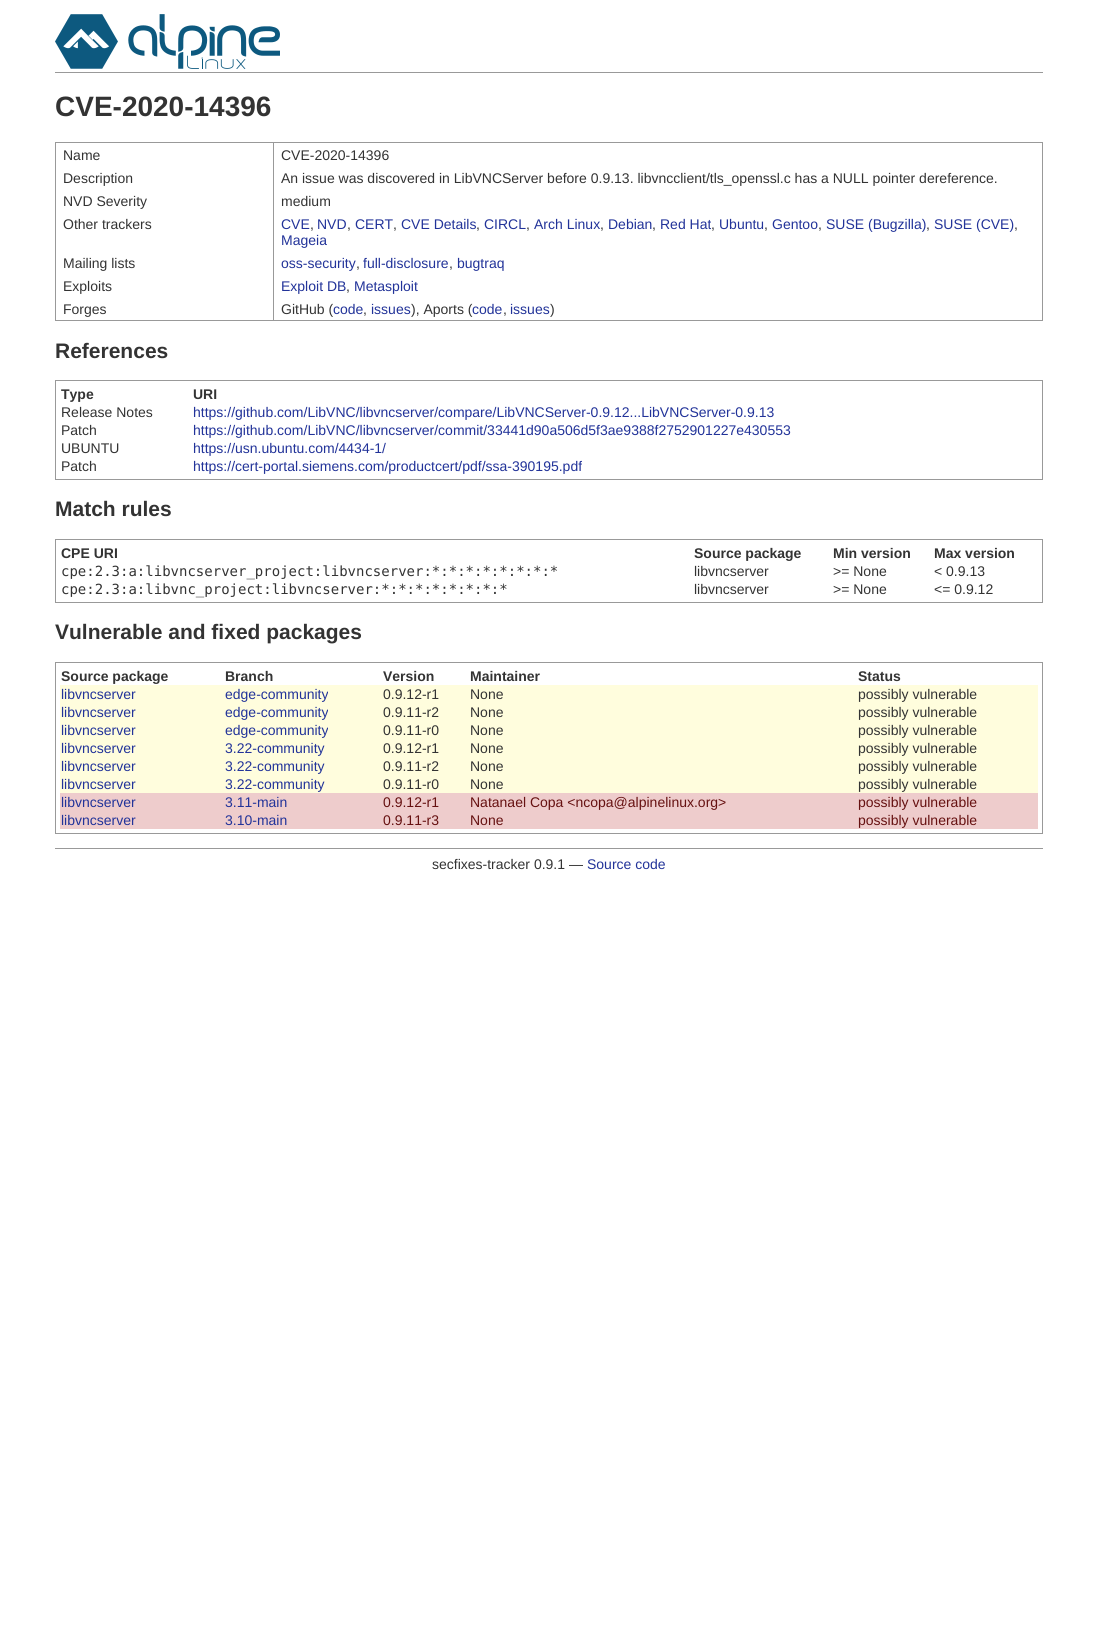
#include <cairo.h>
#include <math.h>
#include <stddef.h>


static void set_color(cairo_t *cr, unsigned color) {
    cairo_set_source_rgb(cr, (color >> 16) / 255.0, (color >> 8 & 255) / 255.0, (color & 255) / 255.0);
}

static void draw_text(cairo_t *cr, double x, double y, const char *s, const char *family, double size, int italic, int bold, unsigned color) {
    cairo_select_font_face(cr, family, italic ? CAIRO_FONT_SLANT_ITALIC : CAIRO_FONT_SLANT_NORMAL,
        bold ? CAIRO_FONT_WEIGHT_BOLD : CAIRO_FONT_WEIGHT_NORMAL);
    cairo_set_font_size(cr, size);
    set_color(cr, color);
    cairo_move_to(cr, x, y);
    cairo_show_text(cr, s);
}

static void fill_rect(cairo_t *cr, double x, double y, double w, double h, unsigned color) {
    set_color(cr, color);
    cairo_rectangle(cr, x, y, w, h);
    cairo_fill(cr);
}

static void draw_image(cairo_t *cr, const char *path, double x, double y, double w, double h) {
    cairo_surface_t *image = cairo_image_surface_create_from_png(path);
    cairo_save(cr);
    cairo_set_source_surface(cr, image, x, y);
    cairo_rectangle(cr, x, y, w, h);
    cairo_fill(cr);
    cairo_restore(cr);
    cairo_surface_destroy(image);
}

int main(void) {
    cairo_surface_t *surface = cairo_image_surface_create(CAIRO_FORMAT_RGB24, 1098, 1634);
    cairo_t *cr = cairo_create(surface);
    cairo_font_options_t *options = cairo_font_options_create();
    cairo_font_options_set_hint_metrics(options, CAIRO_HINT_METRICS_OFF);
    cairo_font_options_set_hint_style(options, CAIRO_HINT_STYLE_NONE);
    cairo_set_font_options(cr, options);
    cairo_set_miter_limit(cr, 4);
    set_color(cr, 0xFFFFFF);
    cairo_paint(cr);
    fill_rect(cr, 55, 72, 988, 1, 0x999999);
    draw_image(cr, "assets/img1.png", 55, 14, 225, 55);
    draw_text(cr, 55, 116, "CVE-2020-14396", "Liberation Sans", 28, 0, 1, 0x333333);
    cairo_rectangle(cr, 55.5, 142.5, 987, 178);
    set_color(cr, 0x999999);
    cairo_set_line_width(cr, 1);
    cairo_stroke(cr);
    draw_text(cr, 63, 160, "Name", "Liberation Sans", 14, 0, 0, 0x333333);
    fill_rect(cr, 273, 143, 1, 177, 0x999999);
    draw_text(cr, 281, 160, "CVE-2020-14396", "Liberation Sans", 14, 0, 0, 0x333333);
    draw_text(cr, 63, 183, "Description", "Liberation Sans", 14, 0, 0, 0x333333);
    draw_text(cr, 281, 183, "An issue was discovered in LibVNCServer before 0.9.13. libvncclient/tls_openssl.c has a NULL pointer dereference.", "Liberation Sans", 14, 0, 0, 0x333333);
    draw_text(cr, 63, 206, "NVD Severity", "Liberation Sans", 14, 0, 0, 0x333333);
    draw_text(cr, 281, 206, "medium", "Liberation Sans", 14, 0, 0, 0x333333);
    draw_text(cr, 63, 229, "Other trackers", "Liberation Sans", 14, 0, 0, 0x333333);
    draw_text(cr, 281, 229, "CVE", "Liberation Sans", 14, 0, 0, 0x223399);
    draw_text(cr, 310, 229, ",", "Liberation Sans", 14, 0, 0, 0x333333);
    draw_text(cr, 317, 229, "NVD", "Liberation Sans", 14, 0, 0, 0x223399);
    draw_text(cr, 347, 229, ",", "Liberation Sans", 14, 0, 0, 0x333333);
    draw_text(cr, 355, 229, "CERT", "Liberation Sans", 14, 0, 0, 0x223399);
    draw_text(cr, 393, 229, ",", "Liberation Sans", 14, 0, 0, 0x333333);
    draw_text(cr, 401, 229, "CVE Details", "Liberation Sans", 14, 0, 0, 0x223399);
    draw_text(cr, 476, 229, ",", "Liberation Sans", 14, 0, 0, 0x333333);
    draw_text(cr, 484, 229, "CIRCL", "Liberation Sans", 14, 0, 0, 0x223399);
    draw_text(cr, 526, 229, ",", "Liberation Sans", 14, 0, 0, 0x333333);
    draw_text(cr, 534, 229, "Arch Linux", "Liberation Sans", 14, 0, 0, 0x223399);
    draw_text(cr, 600, 229, ",", "Liberation Sans", 14, 0, 0, 0x333333);
    draw_text(cr, 608, 229, "Debian", "Liberation Sans", 14, 0, 0, 0x223399);
    draw_text(cr, 652, 229, ",", "Liberation Sans", 14, 0, 0, 0x333333);
    draw_text(cr, 660, 229, "Red Hat", "Liberation Sans", 14, 0, 0, 0x223399);
    draw_text(cr, 711, 229, ",", "Liberation Sans", 14, 0, 0, 0x333333);
    draw_text(cr, 719, 229, "Ubuntu", "Liberation Sans", 14, 0, 0, 0x223399);
    draw_text(cr, 764, 229, ",", "Liberation Sans", 14, 0, 0, 0x333333);
    draw_text(cr, 772, 229, "Gentoo", "Liberation Sans", 14, 0, 0, 0x223399);
    draw_text(cr, 818, 229, ",", "Liberation Sans", 14, 0, 0, 0x333333);
    draw_text(cr, 826, 229, "SUSE (Bugzilla)", "Liberation Sans", 14, 0, 0, 0x223399);
    draw_text(cr, 926, 229, ",", "Liberation Sans", 14, 0, 0, 0x333333);
    draw_text(cr, 934, 229, "SUSE (CVE)", "Liberation Sans", 14, 0, 0, 0x223399);
    draw_text(cr, 1014, 229, ",", "Liberation Sans", 14, 0, 0, 0x333333);
    draw_text(cr, 281, 245, "Mageia", "Liberation Sans", 14, 0, 0, 0x223399);
    draw_text(cr, 63, 268, "Mailing lists", "Liberation Sans", 14, 0, 0, 0x333333);
    draw_text(cr, 281, 268, "oss-security", "Liberation Sans", 14, 0, 0, 0x223399);
    draw_text(cr, 356, 268, ",", "Liberation Sans", 14, 0, 0, 0x333333);
    draw_text(cr, 363, 268, "full-disclosure", "Liberation Sans", 14, 0, 0, 0x223399);
    draw_text(cr, 449, 268, ",", "Liberation Sans", 14, 0, 0, 0x333333);
    draw_text(cr, 457, 268, "bugtraq", "Liberation Sans", 14, 0, 0, 0x223399);
    draw_text(cr, 63, 291, "Exploits", "Liberation Sans", 14, 0, 0, 0x333333);
    draw_text(cr, 281, 291, "Exploit DB", "Liberation Sans", 14, 0, 0, 0x223399);
    draw_text(cr, 346, 291, ",", "Liberation Sans", 14, 0, 0, 0x333333);
    draw_text(cr, 354, 291, "Metasploit", "Liberation Sans", 14, 0, 0, 0x223399);
    draw_text(cr, 63, 314, "Forges", "Liberation Sans", 14, 0, 0, 0x333333);
    draw_text(cr, 281, 314, "GitHub (", "Liberation Sans", 14, 0, 0, 0x333333);
    draw_text(cr, 333, 314, "code", "Liberation Sans", 14, 0, 0, 0x223399);
    draw_text(cr, 363, 314, ",", "Liberation Sans", 14, 0, 0, 0x333333);
    draw_text(cr, 371, 314, "issues", "Liberation Sans", 14, 0, 0, 0x223399);
    draw_text(cr, 411, 314, "), Aports (", "Liberation Sans", 14, 0, 0, 0x333333);
    draw_text(cr, 472, 314, "code", "Liberation Sans", 14, 0, 0, 0x223399);
    draw_text(cr, 503, 314, ",", "Liberation Sans", 14, 0, 0, 0x333333);
    draw_text(cr, 510, 314, "issues", "Liberation Sans", 14, 0, 0, 0x223399);
    draw_text(cr, 550, 314, ")", "Liberation Sans", 14, 0, 0, 0x333333);
    draw_text(cr, 55, 358, "References", "Liberation Sans", 21, 0, 1, 0x333333);
    cairo_rectangle(cr, 55.5, 380.5, 987, 99);
    set_color(cr, 0x999999);
    cairo_stroke(cr);
    draw_text(cr, 61, 399, "Type", "Liberation Sans", 14, 0, 1, 0x333333);
    draw_text(cr, 193, 399, "URI", "Liberation Sans", 14, 0, 1, 0x333333);
    draw_text(cr, 61, 417, "Release Notes", "Liberation Sans", 14, 0, 0, 0x333333);
    draw_text(cr, 193, 417, "https://github.com/LibVNC/libvncserver/compare/LibVNCServer-0.9.12...LibVNCServer-0.9.13", "Liberation Sans", 14, 0, 0, 0x223399);
    draw_text(cr, 61, 435, "Patch", "Liberation Sans", 14, 0, 0, 0x333333);
    draw_text(cr, 193, 435, "https://github.com/LibVNC/libvncserver/commit/33441d90a506d5f3ae9388f2752901227e430553", "Liberation Sans", 14, 0, 0, 0x223399);
    draw_text(cr, 61, 453, "UBUNTU", "Liberation Sans", 14, 0, 0, 0x333333);
    draw_text(cr, 193, 453, "https://usn.ubuntu.com/4434-1/", "Liberation Sans", 14, 0, 0, 0x223399);
    draw_text(cr, 61, 471, "Patch", "Liberation Sans", 14, 0, 0, 0x333333);
    draw_text(cr, 193, 471, "https://cert-portal.siemens.com/productcert/pdf/ssa-390195.pdf", "Liberation Sans", 14, 0, 0, 0x223399);
    draw_text(cr, 55, 516, "Match rules", "Liberation Sans", 21, 0, 1, 0x333333);
    cairo_rectangle(cr, 55.5, 539.5, 987, 63);
    set_color(cr, 0x999999);
    cairo_stroke(cr);
    draw_text(cr, 61, 558, "CPE URI", "Liberation Sans", 14, 0, 1, 0x333333);
    draw_text(cr, 694, 558, "Source package", "Liberation Sans", 14, 0, 1, 0x333333);
    draw_text(cr, 833, 558, "Min version", "Liberation Sans", 14, 0, 1, 0x333333);
    draw_text(cr, 934, 558, "Max version", "Liberation Sans", 14, 0, 1, 0x333333);
    draw_text(cr, 61, 576, "cpe:2.3:a:libvncserver_project:libvncserver:*:*:*:*:*:*:*:*", "DejaVu Sans Mono", 14, 0, 0, 0x333333);
    draw_text(cr, 694, 576, "libvncserver", "Liberation Sans", 14, 0, 0, 0x333333);
    draw_text(cr, 833, 576, ">= None", "Liberation Sans", 14, 0, 0, 0x333333);
    draw_text(cr, 934, 576, "< 0.9.13", "Liberation Sans", 14, 0, 0, 0x333333);
    draw_text(cr, 61, 594, "cpe:2.3:a:libvnc_project:libvncserver:*:*:*:*:*:*:*:*", "DejaVu Sans Mono", 14, 0, 0, 0x333333);
    draw_text(cr, 694, 594, "libvncserver", "Liberation Sans", 14, 0, 0, 0x333333);
    draw_text(cr, 833, 594, ">= None", "Liberation Sans", 14, 0, 0, 0x333333);
    draw_text(cr, 934, 594, "<= 0.9.12", "Liberation Sans", 14, 0, 0, 0x333333);
    draw_text(cr, 55, 639, "Vulnerable and fixed packages", "Liberation Sans", 21, 0, 1, 0x333333);
    cairo_rectangle(cr, 55.5, 662.5, 987, 171);
    set_color(cr, 0x999999);
    cairo_stroke(cr);
    draw_text(cr, 61, 681, "Source package", "Liberation Sans", 14, 0, 1, 0x333333);
    draw_text(cr, 225, 681, "Branch", "Liberation Sans", 14, 0, 1, 0x333333);
    draw_text(cr, 383, 681, "Version", "Liberation Sans", 14, 0, 1, 0x333333);
    draw_text(cr, 470, 681, "Maintainer", "Liberation Sans", 14, 0, 1, 0x333333);
    draw_text(cr, 858, 681, "Status", "Liberation Sans", 14, 0, 1, 0x333333);
    fill_rect(cr, 60, 685, 978, 108, 0xFFFDDD);
    draw_text(cr, 61, 699, "libvncserver", "Liberation Sans", 14, 0, 0, 0x223399);
    draw_text(cr, 225, 699, "edge-community", "Liberation Sans", 14, 0, 0, 0x223399);
    draw_text(cr, 383, 699, "0.9.12-r1", "Liberation Sans", 14, 0, 0, 0x333333);
    draw_text(cr, 470, 699, "None", "Liberation Sans", 14, 0, 0, 0x333333);
    draw_text(cr, 858, 699, "possibly vulnerable", "Liberation Sans", 14, 0, 0, 0x333333);
    draw_text(cr, 61, 717, "libvncserver", "Liberation Sans", 14, 0, 0, 0x223399);
    draw_text(cr, 225, 717, "edge-community", "Liberation Sans", 14, 0, 0, 0x223399);
    draw_text(cr, 383, 717, "0.9.11-r2", "Liberation Sans", 14, 0, 0, 0x333333);
    draw_text(cr, 470, 717, "None", "Liberation Sans", 14, 0, 0, 0x333333);
    draw_text(cr, 858, 717, "possibly vulnerable", "Liberation Sans", 14, 0, 0, 0x333333);
    draw_text(cr, 61, 735, "libvncserver", "Liberation Sans", 14, 0, 0, 0x223399);
    draw_text(cr, 225, 735, "edge-community", "Liberation Sans", 14, 0, 0, 0x223399);
    draw_text(cr, 383, 735, "0.9.11-r0", "Liberation Sans", 14, 0, 0, 0x333333);
    draw_text(cr, 470, 735, "None", "Liberation Sans", 14, 0, 0, 0x333333);
    draw_text(cr, 858, 735, "possibly vulnerable", "Liberation Sans", 14, 0, 0, 0x333333);
    draw_text(cr, 61, 753, "libvncserver", "Liberation Sans", 14, 0, 0, 0x223399);
    draw_text(cr, 225, 753, "3.22-community", "Liberation Sans", 14, 0, 0, 0x223399);
    draw_text(cr, 383, 753, "0.9.12-r1", "Liberation Sans", 14, 0, 0, 0x333333);
    draw_text(cr, 470, 753, "None", "Liberation Sans", 14, 0, 0, 0x333333);
    draw_text(cr, 858, 753, "possibly vulnerable", "Liberation Sans", 14, 0, 0, 0x333333);
    draw_text(cr, 61, 771, "libvncserver", "Liberation Sans", 14, 0, 0, 0x223399);
    draw_text(cr, 225, 771, "3.22-community", "Liberation Sans", 14, 0, 0, 0x223399);
    draw_text(cr, 383, 771, "0.9.11-r2", "Liberation Sans", 14, 0, 0, 0x333333);
    draw_text(cr, 470, 771, "None", "Liberation Sans", 14, 0, 0, 0x333333);
    draw_text(cr, 858, 771, "possibly vulnerable", "Liberation Sans", 14, 0, 0, 0x333333);
    draw_text(cr, 61, 789, "libvncserver", "Liberation Sans", 14, 0, 0, 0x223399);
    draw_text(cr, 225, 789, "3.22-community", "Liberation Sans", 14, 0, 0, 0x223399);
    draw_text(cr, 383, 789, "0.9.11-r0", "Liberation Sans", 14, 0, 0, 0x333333);
    draw_text(cr, 470, 789, "None", "Liberation Sans", 14, 0, 0, 0x333333);
    draw_text(cr, 858, 789, "possibly vulnerable", "Liberation Sans", 14, 0, 0, 0x333333);
    fill_rect(cr, 60, 793, 978, 36, 0xEECCCC);
    draw_text(cr, 61, 807, "libvncserver", "Liberation Sans", 14, 0, 0, 0x223399);
    draw_text(cr, 225, 807, "3.11-main", "Liberation Sans", 14, 0, 0, 0x223399);
    draw_text(cr, 383, 807, "0.9.12-r1", "Liberation Sans", 14, 0, 0, 0x661111);
    draw_text(cr, 470, 807, "Natanael Copa <ncopa@alpinelinux.org>", "Liberation Sans", 14, 0, 0, 0x661111);
    draw_text(cr, 858, 807, "possibly vulnerable", "Liberation Sans", 14, 0, 0, 0x661111);
    draw_text(cr, 61, 825, "libvncserver", "Liberation Sans", 14, 0, 0, 0x223399);
    draw_text(cr, 225, 825, "3.10-main", "Liberation Sans", 14, 0, 0, 0x223399);
    draw_text(cr, 383, 825, "0.9.11-r3", "Liberation Sans", 14, 0, 0, 0x661111);
    draw_text(cr, 470, 825, "None", "Liberation Sans", 14, 0, 0, 0x661111);
    draw_text(cr, 858, 825, "possibly vulnerable", "Liberation Sans", 14, 0, 0, 0x661111);
    fill_rect(cr, 55, 848, 988, 1, 0x999999);
    draw_text(cr, 432, 869, "secfixes-tracker 0.9.1 —", "Liberation Sans", 14, 0, 0, 0x333333);
    draw_text(cr, 587, 869, "Source code", "Liberation Sans", 14, 0, 0, 0x223399);
    cairo_surface_write_to_png(surface, "output.png");
    cairo_font_options_destroy(options);
    cairo_destroy(cr);
    cairo_surface_destroy(surface);
    return 0;
}
